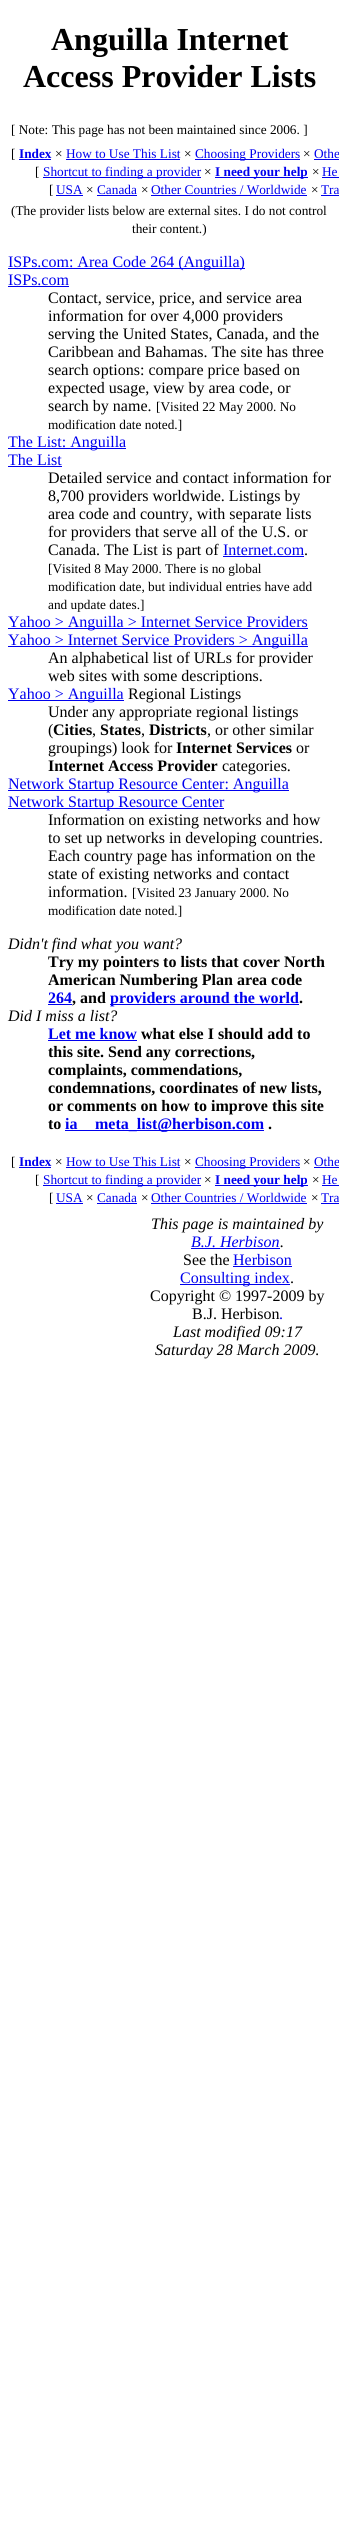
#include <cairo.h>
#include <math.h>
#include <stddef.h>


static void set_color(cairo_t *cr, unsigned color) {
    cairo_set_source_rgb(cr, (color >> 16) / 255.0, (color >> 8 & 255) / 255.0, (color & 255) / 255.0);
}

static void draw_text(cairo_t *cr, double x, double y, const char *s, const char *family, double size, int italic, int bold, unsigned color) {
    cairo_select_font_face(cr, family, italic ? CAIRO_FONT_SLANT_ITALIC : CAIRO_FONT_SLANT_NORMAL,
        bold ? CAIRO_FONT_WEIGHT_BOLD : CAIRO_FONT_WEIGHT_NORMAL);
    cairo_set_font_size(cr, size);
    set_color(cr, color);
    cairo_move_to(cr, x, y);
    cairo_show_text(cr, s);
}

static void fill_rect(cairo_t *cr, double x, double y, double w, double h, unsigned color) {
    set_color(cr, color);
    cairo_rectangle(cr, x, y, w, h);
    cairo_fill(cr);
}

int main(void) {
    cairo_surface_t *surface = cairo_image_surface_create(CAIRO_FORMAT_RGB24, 339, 2534);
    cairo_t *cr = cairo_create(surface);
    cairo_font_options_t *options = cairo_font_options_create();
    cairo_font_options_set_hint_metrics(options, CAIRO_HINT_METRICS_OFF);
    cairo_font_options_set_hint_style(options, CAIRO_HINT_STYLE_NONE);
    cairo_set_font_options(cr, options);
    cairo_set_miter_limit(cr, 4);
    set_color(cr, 0xFFFFFF);
    cairo_paint(cr);
    draw_text(cr, 51, 50, "Anguilla Internet", "Liberation Serif", 32, 0, 1, 0x000000);
    draw_text(cr, 23, 87, "Access Provider Lists", "Liberation Serif", 32, 0, 1, 0x000000);
    draw_text(cr, 11, 134, "[ Note: This page has not been maintained since 2006. ]", "Liberation Serif", 13.3, 0, 0, 0x000000);
    draw_text(cr, 11, 158, "[", "Liberation Serif", 13.3, 0, 0, 0x000000);
    draw_text(cr, 19, 158, "Index", "Liberation Serif", 13.3, 0, 1, 0x0000EE);
    fill_rect(cr, 19, 159, 32, 1, 0x0000EE);
    draw_text(cr, 55, 158, "×", "Liberation Serif", 13.3, 0, 0, 0x000000);
    draw_text(cr, 66, 158, "How to Use This List", "Liberation Serif", 13.3, 0, 0, 0x0000EE);
    fill_rect(cr, 66, 159, 114, 1, 0x0000EE);
    draw_text(cr, 184, 158, "×", "Liberation Serif", 13.3, 0, 0, 0x000000);
    fill_rect(cr, 195, 159, 105, 1, 0x0000EE);
    draw_text(cr, 195, 158, "Choosing Providers", "Liberation Serif", 13.3, 0, 0, 0x0000EE);
    draw_text(cr, 303, 158, "×", "Liberation Serif", 13.3, 0, 0, 0x000000);
    draw_text(cr, 314, 158, "Othe", "Liberation Serif", 13.3, 0, 0, 0x0000EE);
    fill_rect(cr, 314, 159, 25, 1, 0x0000EE);
    draw_text(cr, 35, 176, "[", "Liberation Serif", 13.3, 0, 0, 0x000000);
    fill_rect(cr, 43, 177, 158, 1, 0x0000EE);
    draw_text(cr, 43, 176, "Shortcut to finding a provider", "Liberation Serif", 13.3, 0, 0, 0x0000EE);
    draw_text(cr, 204, 176, "×", "Liberation Serif", 13.3, 0, 0, 0x000000);
    fill_rect(cr, 215, 177, 93, 1, 0x0000EE);
    draw_text(cr, 215, 176, "I need your help", "Liberation Serif", 13.3, 0, 1, 0x0000EE);
    draw_text(cr, 312, 176, "×", "Liberation Serif", 13.3, 0, 0, 0x000000);
    draw_text(cr, 322, 176, "He", "Liberation Serif", 13.3, 0, 0, 0x0000EE);
    fill_rect(cr, 322, 177, 17, 1, 0x0000EE);
    draw_text(cr, 49, 194, "[", "Liberation Serif", 13.3, 0, 0, 0x000000);
    draw_text(cr, 56, 194, "USA", "Liberation Serif", 13.3, 0, 0, 0x0000EE);
    fill_rect(cr, 56, 195, 27, 1, 0x0000EE);
    draw_text(cr, 86, 194, "×", "Liberation Serif", 13.3, 0, 0, 0x000000);
    draw_text(cr, 97, 194, "Canada", "Liberation Serif", 13.3, 0, 0, 0x0000EE);
    fill_rect(cr, 97, 195, 40, 1, 0x0000EE);
    draw_text(cr, 141, 194, "×", "Liberation Serif", 13.3, 0, 0, 0x000000);
    draw_text(cr, 151, 194, "Other Countries / Worldwide", "Liberation Serif", 13.3, 0, 0, 0x0000EE);
    fill_rect(cr, 151, 195, 156, 1, 0x0000EE);
    draw_text(cr, 311, 194, "×", "Liberation Serif", 13.3, 0, 0, 0x000000);
    draw_text(cr, 321, 194, "Tra", "Liberation Serif", 13.3, 0, 0, 0x0000EE);
    fill_rect(cr, 321, 195, 18, 1, 0x0000EE);
    draw_text(cr, 11, 215, "(The provider lists below are external sites. I do not control", "Liberation Serif", 13.3, 0, 0, 0x000000);
    draw_text(cr, 132, 233, "their content.)", "Liberation Serif", 13.3, 0, 0, 0x000000);
    fill_rect(cr, 8, 268, 237, 1, 0x0000EE);
    draw_text(cr, 8, 267, "ISPs.com: Area Code 264 (Anguilla)", "Liberation Serif", 16, 0, 0, 0x0000EE);
    draw_text(cr, 8, 285, "ISPs.com", "Liberation Serif", 16, 0, 0, 0x0000EE);
    fill_rect(cr, 8, 286, 61, 1, 0x0000EE);
    draw_text(cr, 48, 303, "Contact, service, price, and service area", "Liberation Serif", 16, 0, 0, 0x000000);
    draw_text(cr, 48, 321, "information for over 4,000 providers", "Liberation Serif", 16, 0, 0, 0x000000);
    draw_text(cr, 48, 339, "serving the United States, Canada, and the", "Liberation Serif", 16, 0, 0, 0x000000);
    draw_text(cr, 48, 357, "Caribbean and Bahamas. The site has three", "Liberation Serif", 16, 0, 0, 0x000000);
    draw_text(cr, 48, 375, "search options: compare price based on", "Liberation Serif", 16, 0, 0, 0x000000);
    draw_text(cr, 48, 393, "expected usage, view by area code, or", "Liberation Serif", 16, 0, 0, 0x000000);
    draw_text(cr, 48, 411, "search by name.", "Liberation Serif", 16, 0, 0, 0x000000);
    draw_text(cr, 156, 411, "[Visited 22 May 2000. No", "Liberation Serif", 13.3, 0, 0, 0x000000);
    draw_text(cr, 48, 429, "modification date noted.]", "Liberation Serif", 13.3, 0, 0, 0x000000);
    fill_rect(cr, 8, 448, 118, 1, 0x0000EE);
    draw_text(cr, 8, 447, "The List: Anguilla", "Liberation Serif", 16, 0, 0, 0x0000EE);
    draw_text(cr, 8, 465, "The List", "Liberation Serif", 16, 0, 0, 0x0000EE);
    fill_rect(cr, 8, 466, 54, 1, 0x0000EE);
    draw_text(cr, 48, 483, "Detailed service and contact information for", "Liberation Serif", 16, 0, 0, 0x000000);
    draw_text(cr, 48, 501, "8,700 providers worldwide. Listings by", "Liberation Serif", 16, 0, 0, 0x000000);
    draw_text(cr, 48, 519, "area code and country, with separate lists", "Liberation Serif", 16, 0, 0, 0x000000);
    draw_text(cr, 48, 537, "for providers that serve all of the U.S. or", "Liberation Serif", 16, 0, 0, 0x000000);
    draw_text(cr, 48, 555, "Canada. The List is part of", "Liberation Serif", 16, 0, 0, 0x000000);
    draw_text(cr, 223, 555, "Internet.com", "Liberation Serif", 16, 0, 0, 0x0000EE);
    fill_rect(cr, 223, 556, 81, 1, 0x0000EE);
    draw_text(cr, 304, 555, ".", "Liberation Serif", 16, 0, 0, 0x000000);
    draw_text(cr, 48, 573, "[Visited 8 May 2000. There is no global", "Liberation Serif", 13.3, 0, 0, 0x000000);
    draw_text(cr, 48, 591, "modification date, but individual entries have add", "Liberation Serif", 13.3, 0, 0, 0x000000);
    draw_text(cr, 48, 609, "and update dates.]", "Liberation Serif", 13.3, 0, 0, 0x000000);
    fill_rect(cr, 8, 628, 300, 1, 0x0000EE);
    draw_text(cr, 8, 627, "Yahoo > Anguilla > Internet Service Providers", "Liberation Serif", 16, 0, 0, 0x0000EE);
    fill_rect(cr, 8, 646, 300, 1, 0x0000EE);
    draw_text(cr, 8, 645, "Yahoo > Internet Service Providers > Anguilla", "Liberation Serif", 16, 0, 0, 0x0000EE);
    draw_text(cr, 48, 663, "An alphabetical list of URLs for provider", "Liberation Serif", 16, 0, 0, 0x000000);
    draw_text(cr, 48, 681, "web sites with some descriptions.", "Liberation Serif", 16, 0, 0, 0x000000);
    fill_rect(cr, 8, 700, 116, 1, 0x0000EE);
    draw_text(cr, 8, 699, "Yahoo > Anguilla", "Liberation Serif", 16, 0, 0, 0x0000EE);
    draw_text(cr, 128, 699, "Regional Listings", "Liberation Serif", 16, 0, 0, 0x000000);
    draw_text(cr, 48, 717, "Under any appropriate regional listings", "Liberation Serif", 16, 0, 0, 0x000000);
    draw_text(cr, 48, 735, "(", "Liberation Serif", 16, 0, 0, 0x000000);
    draw_text(cr, 53, 735, "Cities", "Liberation Serif", 16, 0, 1, 0x000000);
    draw_text(cr, 92, 735, ",", "Liberation Serif", 16, 0, 0, 0x000000);
    draw_text(cr, 100, 735, "States", "Liberation Serif", 16, 0, 1, 0x000000);
    draw_text(cr, 141, 735, ",", "Liberation Serif", 16, 0, 0, 0x000000);
    draw_text(cr, 149, 735, "Districts", "Liberation Serif", 16, 0, 1, 0x000000);
    draw_text(cr, 207, 735, ", or other similar", "Liberation Serif", 16, 0, 0, 0x000000);
    draw_text(cr, 48, 753, "groupings) look for", "Liberation Serif", 16, 0, 0, 0x000000);
    draw_text(cr, 176, 753, "Internet Services", "Liberation Serif", 16, 0, 1, 0x000000);
    draw_text(cr, 296, 753, "or", "Liberation Serif", 16, 0, 0, 0x000000);
    draw_text(cr, 48, 771, "Internet Access Provider", "Liberation Serif", 16, 0, 1, 0x000000);
    draw_text(cr, 222, 771, "categories.", "Liberation Serif", 16, 0, 0, 0x000000);
    fill_rect(cr, 8, 790, 281, 1, 0x0000EE);
    draw_text(cr, 8, 789, "Network Startup Resource Center: Anguilla", "Liberation Serif", 16, 0, 0, 0x0000EE);
    fill_rect(cr, 8, 808, 216, 1, 0x0000EE);
    draw_text(cr, 8, 807, "Network Startup Resource Center", "Liberation Serif", 16, 0, 0, 0x0000EE);
    draw_text(cr, 48, 825, "Information on existing networks and how", "Liberation Serif", 16, 0, 0, 0x000000);
    draw_text(cr, 48, 843, "to set up networks in developing countries.", "Liberation Serif", 16, 0, 0, 0x000000);
    draw_text(cr, 48, 861, "Each country page has information on the", "Liberation Serif", 16, 0, 0, 0x000000);
    draw_text(cr, 48, 879, "state of existing networks and contact", "Liberation Serif", 16, 0, 0, 0x000000);
    draw_text(cr, 48, 897, "information.", "Liberation Serif", 16, 0, 0, 0x000000);
    draw_text(cr, 132, 897, "[Visited 23 January 2000. No", "Liberation Serif", 13.3, 0, 0, 0x000000);
    draw_text(cr, 48, 915, "modification date noted.]", "Liberation Serif", 13.3, 0, 0, 0x000000);
    draw_text(cr, 8, 949, "Didn't find what you want?", "Liberation Serif", 16, 1, 0, 0x000000);
    draw_text(cr, 48, 967, "Try my pointers to lists that cover North", "Liberation Serif", 16, 0, 1, 0x000000);
    draw_text(cr, 48, 985, "American Numbering Plan area code", "Liberation Serif", 16, 0, 1, 0x000000);
    draw_text(cr, 48, 1003, "264", "Liberation Serif", 16, 0, 1, 0x0000EE);
    draw_text(cr, 72, 1003, ", and", "Liberation Serif", 16, 0, 1, 0x000000);
    fill_rect(cr, 48, 1004, 24, 1, 0x0000EE);
    fill_rect(cr, 110, 1004, 189, 1, 0x0000EE);
    draw_text(cr, 110, 1003, "providers around the world", "Liberation Serif", 16, 0, 1, 0x0000EE);
    draw_text(cr, 299, 1003, ".", "Liberation Serif", 16, 0, 1, 0x000000);
    draw_text(cr, 8, 1021, "Did I miss a list?", "Liberation Serif", 16, 1, 0, 0x000000);
    draw_text(cr, 48, 1039, "Let me know", "Liberation Serif", 16, 0, 1, 0x0000EE);
    fill_rect(cr, 48, 1040, 89, 1, 0x0000EE);
    draw_text(cr, 141, 1039, "what else I should add to", "Liberation Serif", 16, 0, 1, 0x000000);
    draw_text(cr, 48, 1057, "this site. Send any corrections,", "Liberation Serif", 16, 0, 1, 0x000000);
    draw_text(cr, 48, 1075, "complaints, commendations,", "Liberation Serif", 16, 0, 1, 0x000000);
    draw_text(cr, 48, 1093, "condemnations, coordinates of new lists,", "Liberation Serif", 16, 0, 1, 0x000000);
    draw_text(cr, 48, 1111, "or comments on how to improve this site", "Liberation Serif", 16, 0, 1, 0x000000);
    draw_text(cr, 48, 1129, "to", "Liberation Serif", 16, 0, 1, 0x000000);
    draw_text(cr, 65, 1129, "ia", "Liberation Serif", 16, 0, 1, 0x0000EE);
    fill_rect(cr, 65, 1130, 199, 1, 0x0000EE);
    draw_text(cr, 95, 1129, "meta_list@herbison.com", "Liberation Serif", 16, 0, 1, 0x0000EE);
    draw_text(cr, 268, 1129, ".", "Liberation Serif", 16, 0, 1, 0x000000);
    draw_text(cr, 11, 1166, "[", "Liberation Serif", 13.3, 0, 0, 0x000000);
    draw_text(cr, 19, 1166, "Index", "Liberation Serif", 13.3, 0, 1, 0x0000EE);
    fill_rect(cr, 19, 1167, 32, 1, 0x0000EE);
    draw_text(cr, 55, 1166, "×", "Liberation Serif", 13.3, 0, 0, 0x000000);
    draw_text(cr, 66, 1166, "How to Use This List", "Liberation Serif", 13.3, 0, 0, 0x0000EE);
    fill_rect(cr, 66, 1167, 114, 1, 0x0000EE);
    draw_text(cr, 184, 1166, "×", "Liberation Serif", 13.3, 0, 0, 0x000000);
    fill_rect(cr, 195, 1167, 105, 1, 0x0000EE);
    draw_text(cr, 195, 1166, "Choosing Providers", "Liberation Serif", 13.3, 0, 0, 0x0000EE);
    draw_text(cr, 303, 1166, "×", "Liberation Serif", 13.3, 0, 0, 0x000000);
    draw_text(cr, 314, 1166, "Othe", "Liberation Serif", 13.3, 0, 0, 0x0000EE);
    fill_rect(cr, 314, 1167, 25, 1, 0x0000EE);
    draw_text(cr, 35, 1184, "[", "Liberation Serif", 13.3, 0, 0, 0x000000);
    fill_rect(cr, 43, 1185, 158, 1, 0x0000EE);
    draw_text(cr, 43, 1184, "Shortcut to finding a provider", "Liberation Serif", 13.3, 0, 0, 0x0000EE);
    draw_text(cr, 204, 1184, "×", "Liberation Serif", 13.3, 0, 0, 0x000000);
    fill_rect(cr, 215, 1185, 93, 1, 0x0000EE);
    draw_text(cr, 215, 1184, "I need your help", "Liberation Serif", 13.3, 0, 1, 0x0000EE);
    draw_text(cr, 312, 1184, "×", "Liberation Serif", 13.3, 0, 0, 0x000000);
    draw_text(cr, 322, 1184, "He", "Liberation Serif", 13.3, 0, 0, 0x0000EE);
    fill_rect(cr, 322, 1185, 17, 1, 0x0000EE);
    draw_text(cr, 49, 1202, "[", "Liberation Serif", 13.3, 0, 0, 0x000000);
    draw_text(cr, 56, 1202, "USA", "Liberation Serif", 13.3, 0, 0, 0x0000EE);
    fill_rect(cr, 56, 1203, 27, 1, 0x0000EE);
    draw_text(cr, 86, 1202, "×", "Liberation Serif", 13.3, 0, 0, 0x000000);
    draw_text(cr, 97, 1202, "Canada", "Liberation Serif", 13.3, 0, 0, 0x0000EE);
    fill_rect(cr, 97, 1203, 40, 1, 0x0000EE);
    draw_text(cr, 141, 1202, "×", "Liberation Serif", 13.3, 0, 0, 0x000000);
    draw_text(cr, 151, 1202, "Other Countries / Worldwide", "Liberation Serif", 13.3, 0, 0, 0x0000EE);
    fill_rect(cr, 151, 1203, 156, 1, 0x0000EE);
    draw_text(cr, 311, 1202, "×", "Liberation Serif", 13.3, 0, 0, 0x000000);
    draw_text(cr, 321, 1202, "Tra", "Liberation Serif", 13.3, 0, 0, 0x0000EE);
    fill_rect(cr, 321, 1203, 18, 1, 0x0000EE);
    draw_text(cr, 151, 1229, "This page is maintained by", "Liberation Serif", 16, 1, 0, 0x000000);
    draw_text(cr, 191, 1247, "B.J. Herbison", "Liberation Serif", 16, 1, 0, 0x0000EE);
    draw_text(cr, 280, 1247, ".", "Liberation Serif", 16, 1, 0, 0x000000);
    fill_rect(cr, 191, 1248, 89, 1, 0x0000EE);
    draw_text(cr, 183, 1265, "See the", "Liberation Serif", 16, 0, 0, 0x000000);
    draw_text(cr, 233, 1265, "Herbison", "Liberation Serif", 16, 0, 0, 0x0000EE);
    fill_rect(cr, 233, 1266, 59, 1, 0x0000EE);
    fill_rect(cr, 180, 1284, 110, 1, 0x0000EE);
    draw_text(cr, 180, 1283, "Consulting index", "Liberation Serif", 16, 0, 0, 0x0000EE);
    draw_text(cr, 290, 1283, ".", "Liberation Serif", 16, 0, 0, 0x000000);
    draw_text(cr, 150, 1301, "Copyright © 1997-2009 by", "Liberation Serif", 16, 0, 0, 0x000000);
    draw_text(cr, 192, 1319, "B.J. Herbison", "Liberation Serif", 16, 0, 0, 0x000000);
    draw_text(cr, 279, 1319, ".", "Liberation Serif", 16, 0, 0, 0x0000EE);
    draw_text(cr, 173, 1337, "Last modified 09:17", "Liberation Serif", 16, 1, 0, 0x000000);
    draw_text(cr, 155, 1355, "Saturday 28 March 2009.", "Liberation Serif", 16, 1, 0, 0x000000);
    cairo_surface_write_to_png(surface, "output.png");
    cairo_font_options_destroy(options);
    cairo_destroy(cr);
    cairo_surface_destroy(surface);
    return 0;
}
